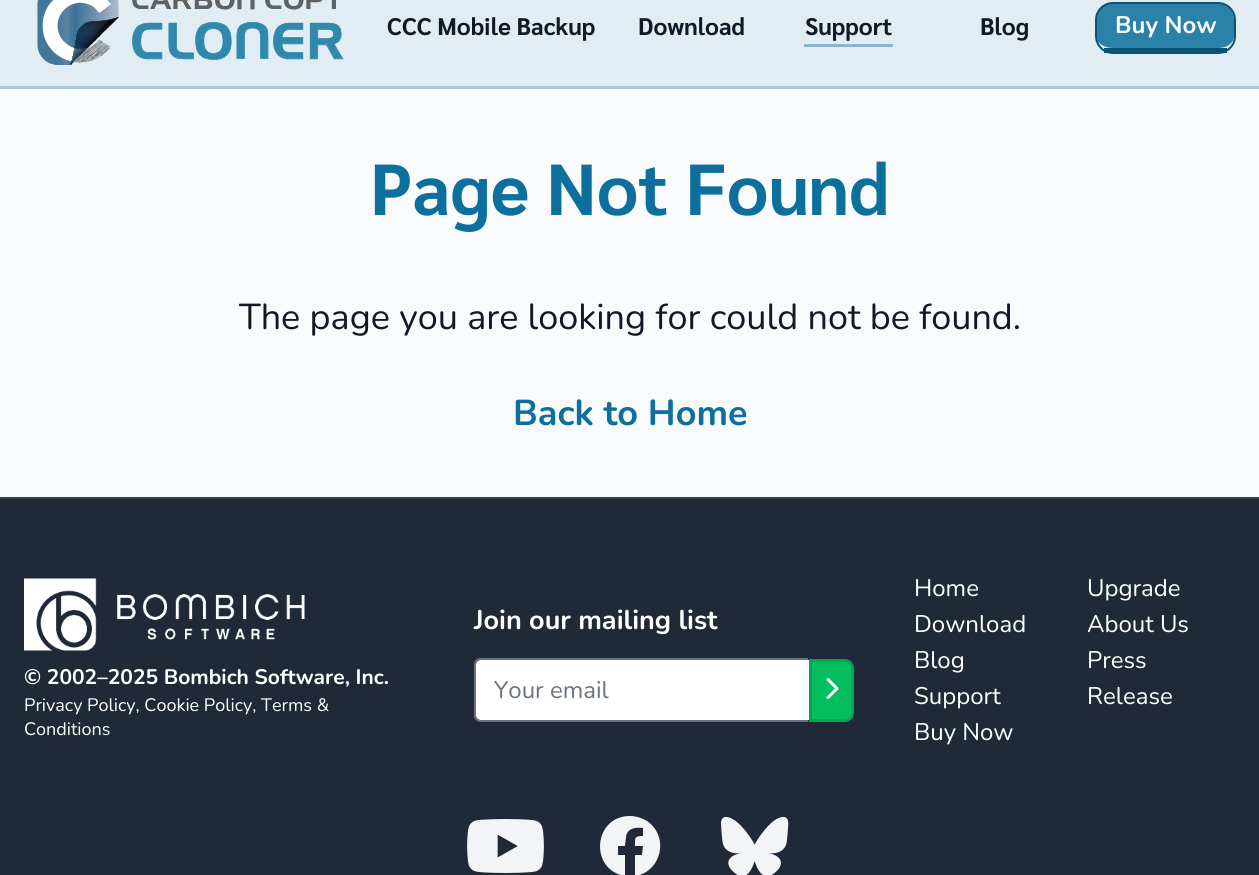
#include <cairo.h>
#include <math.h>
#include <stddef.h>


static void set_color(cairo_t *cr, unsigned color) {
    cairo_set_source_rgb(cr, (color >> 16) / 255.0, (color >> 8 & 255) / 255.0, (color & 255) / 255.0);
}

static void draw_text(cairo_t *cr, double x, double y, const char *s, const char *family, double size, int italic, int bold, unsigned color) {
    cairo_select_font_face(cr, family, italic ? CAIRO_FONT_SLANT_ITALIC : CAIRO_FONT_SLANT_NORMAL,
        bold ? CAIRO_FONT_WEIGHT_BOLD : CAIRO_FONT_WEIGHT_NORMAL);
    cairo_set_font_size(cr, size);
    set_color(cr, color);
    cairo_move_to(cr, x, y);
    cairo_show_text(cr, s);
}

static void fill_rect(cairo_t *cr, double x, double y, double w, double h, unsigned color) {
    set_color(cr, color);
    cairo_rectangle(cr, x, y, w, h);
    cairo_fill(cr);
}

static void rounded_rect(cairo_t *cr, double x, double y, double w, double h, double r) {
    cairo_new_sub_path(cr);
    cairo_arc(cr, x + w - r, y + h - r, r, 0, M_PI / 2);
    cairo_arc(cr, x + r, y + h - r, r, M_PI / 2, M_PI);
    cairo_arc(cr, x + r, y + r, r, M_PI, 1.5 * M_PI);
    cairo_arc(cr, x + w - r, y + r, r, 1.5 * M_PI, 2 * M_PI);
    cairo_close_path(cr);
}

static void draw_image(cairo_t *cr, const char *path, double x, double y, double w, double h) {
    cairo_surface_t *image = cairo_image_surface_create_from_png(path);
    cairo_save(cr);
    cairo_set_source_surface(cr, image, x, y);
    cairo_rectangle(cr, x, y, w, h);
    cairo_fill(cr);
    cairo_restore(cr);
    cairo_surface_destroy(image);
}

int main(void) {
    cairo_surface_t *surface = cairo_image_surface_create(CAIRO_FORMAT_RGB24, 1259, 875);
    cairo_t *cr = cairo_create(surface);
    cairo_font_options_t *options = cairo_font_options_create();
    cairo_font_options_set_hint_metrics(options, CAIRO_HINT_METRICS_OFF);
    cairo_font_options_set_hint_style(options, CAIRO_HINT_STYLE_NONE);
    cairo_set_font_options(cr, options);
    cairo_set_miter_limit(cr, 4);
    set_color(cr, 0xF9FAFB);
    cairo_paint(cr);
    fill_rect(cr, 0, 0, 1259, 86, 0xE1EDF3);
    fill_rect(cr, 0, 86, 1259, 3, 0xA4C9DA);
    draw_image(cr, "assets/img1.png", 37, 0, 307, 65);
    draw_text(cr, 387, 35, "CCC Mobile Backup", "Sarabun", 24, 0, 1, 0x111827);
    draw_text(cr, 638, 35, "Download", "Sarabun", 24, 0, 1, 0x111827);
    fill_rect(cr, 804, 44, 89, 3, 0x86B7CD);
    draw_text(cr, 805, 35, "Support", "Sarabun", 24, 0, 1, 0x111827);
    draw_text(cr, 980, 35, "Blog", "Sarabun", 24, 0, 1, 0x111827);
    set_color(cr, 0x2B81A8);
    cairo_new_path(cr);
    cairo_move_to(cr, 1113, 3);
    cairo_line_to(cr, 1218, 3);
    cairo_curve_to(cr, 1227, 3, 1234, 10, 1234, 20);
    cairo_line_to(cr, 1234, 36);
    cairo_curve_to(cr, 1234, 43, 1227, 48, 1218, 48);
    cairo_line_to(cr, 1113, 48);
    cairo_curve_to(cr, 1104, 48, 1096, 43, 1096, 36);
    cairo_line_to(cr, 1096, 20);
    cairo_curve_to(cr, 1096, 10, 1104, 3, 1113, 3);
    cairo_close_path(cr);
    cairo_fill(cr);
    rounded_rect(cr, 1096, 3, 139, 50, 17);
    set_color(cr, 0x0A5374);
    cairo_stroke(cr);
    draw_text(cr, 1115, 33, "Buy Now", "Nunito", 24, 0, 1, 0xF9FAFB);
    fill_rect(cr, 1104, 48, 123, 5, 0x0A5374);
    draw_text(cr, 370, 215, "Page Not Found", "Sarabun", 72, 0, 1, 0x0D6F9B);
    draw_text(cr, 239, 329, "The page you are looking for could not be found.", "Nunito", 36, 0, 0, 0x111827);
    draw_text(cr, 513, 425, "Back to Home", "Nunito", 36, 0, 1, 0x0D6F9B);
    fill_rect(cr, 0, 499, 1259, 376, 0x1F2937);
    fill_rect(cr, 0, 497, 1259, 2, 0x374151);
    draw_image(cr, "assets/img2.png", 24, 578, 281, 73);
    draw_text(cr, 24, 684, "© 2002–2025 Bombich Software, Inc.", "Nunito", 21, 0, 1, 0xFFFFFF);
    draw_text(cr, 24, 711, "Privacy Policy, Cookie Policy, Terms &", "Nunito", 18, 0, 0, 0xFFFFFF);
    draw_text(cr, 24, 735, "Conditions", "Nunito", 18, 0, 0, 0xFFFFFF);
    draw_text(cr, 474, 629, "Join our mailing list", "Nunito", 27, 0, 1, 0xFFFFFF);
    cairo_new_path(cr);
    cairo_move_to(cr, 481, 660);
    cairo_line_to(cr, 809, 660);
    cairo_line_to(cr, 809, 720);
    cairo_line_to(cr, 481, 720);
    cairo_curve_to(cr, 478, 720, 476, 718, 476, 715);
    cairo_line_to(cr, 476, 665);
    cairo_curve_to(cr, 476, 662, 478, 660, 481, 660);
    cairo_close_path(cr);
    cairo_fill(cr);
    set_color(cr, 0x6B7280);
    cairo_set_fill_rule(cr, CAIRO_FILL_RULE_EVEN_ODD);
    cairo_new_path(cr);
    cairo_move_to(cr, 480, 658);
    cairo_line_to(cr, 808, 658);
    cairo_line_to(cr, 808, 722);
    cairo_line_to(cr, 480, 722);
    cairo_curve_to(cr, 477, 722, 474, 719, 474, 716);
    cairo_line_to(cr, 474, 664);
    cairo_curve_to(cr, 474, 661, 477, 658, 480, 658);
    cairo_close_path(cr);
    cairo_move_to(cr, 480, 660);
    cairo_line_to(cr, 808, 660);
    cairo_line_to(cr, 808, 720);
    cairo_line_to(cr, 480, 720);
    cairo_curve_to(cr, 478, 720, 476, 718, 476, 716);
    cairo_line_to(cr, 476, 664);
    cairo_curve_to(cr, 476, 662, 478, 660, 480, 660);
    cairo_close_path(cr);
    cairo_fill(cr);
    draw_text(cr, 494, 698, "Your email", "Nunito", 24, 0, 0, 0x6B7280);
    set_color(cr, 0x03BE5F);
    cairo_new_path(cr);
    cairo_move_to(cr, 810.5, 660.5);
    cairo_line_to(cr, 845, 660.5);
    cairo_curve_to(cr, 849, 660.5, 852.5, 664, 852.5, 668);
    cairo_line_to(cr, 852.5, 713);
    cairo_curve_to(cr, 852.5, 717, 849, 720.5, 845, 720.5);
    cairo_line_to(cr, 810.5, 720.5);
    cairo_close_path(cr);
    cairo_fill_preserve(cr);
    set_color(cr, 0x02A650);
    cairo_set_line_width(cr, 3);
    cairo_stroke(cr);
    draw_image(cr, "assets/img3.png", 826, 678, 13, 21);
    draw_text(cr, 914, 596, "Home", "Nunito", 24, 0, 0, 0xFFFFFF);
    draw_text(cr, 1087, 596, "Upgrade", "Nunito", 24, 0, 0, 0xFFFFFF);
    draw_text(cr, 914, 632, "Download", "Nunito", 24, 0, 0, 0xFFFFFF);
    draw_text(cr, 1087, 632, "About Us", "Nunito", 24, 0, 0, 0xFFFFFF);
    draw_text(cr, 914, 668, "Blog", "Nunito", 24, 0, 0, 0xFFFFFF);
    draw_text(cr, 1087, 668, "Press", "Nunito", 24, 0, 0, 0xFFFFFF);
    draw_text(cr, 1087, 704, "Release", "Nunito", 24, 0, 0, 0xFFFFFF);
    draw_text(cr, 914, 704, "Support", "Nunito", 24, 0, 0, 0xFFFFFF);
    draw_text(cr, 914, 740, "Buy Now", "Nunito", 24, 0, 0, 0xFFFFFF);
    draw_image(cr, "assets/img4.png", 467, 819, 77, 54);
    set_color(cr, 0xF3F4F6);
    cairo_set_fill_rule(cr, CAIRO_FILL_RULE_WINDING);
    cairo_new_path(cr);
    cairo_move_to(cr, 630, 816);
    cairo_curve_to(cr, 593, 816, 589, 870, 625, 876);
    cairo_line_to(cr, 625, 855);
    cairo_line_to(cr, 618, 855);
    cairo_line_to(cr, 618, 846);
    cairo_line_to(cr, 625, 846);
    cairo_line_to(cr, 626, 837);
    cairo_curve_to(cr, 627, 828, 636, 827, 643, 828);
    cairo_line_to(cr, 643, 836);
    cairo_curve_to(cr, 634, 836, 635, 838, 635, 846);
    cairo_line_to(cr, 643, 846);
    cairo_line_to(cr, 642, 855);
    cairo_line_to(cr, 635, 855);
    cairo_line_to(cr, 635, 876);
    cairo_curve_to(cr, 661, 872, 670, 837, 647, 821);
    cairo_curve_to(cr, 642, 818, 636, 816, 630, 816);
    cairo_close_path(cr);
    cairo_fill(cr);
    draw_image(cr, "assets/img5.png", 721, 816, 68, 59);
    cairo_surface_write_to_png(surface, "output.png");
    cairo_font_options_destroy(options);
    cairo_destroy(cr);
    cairo_surface_destroy(surface);
    return 0;
}
